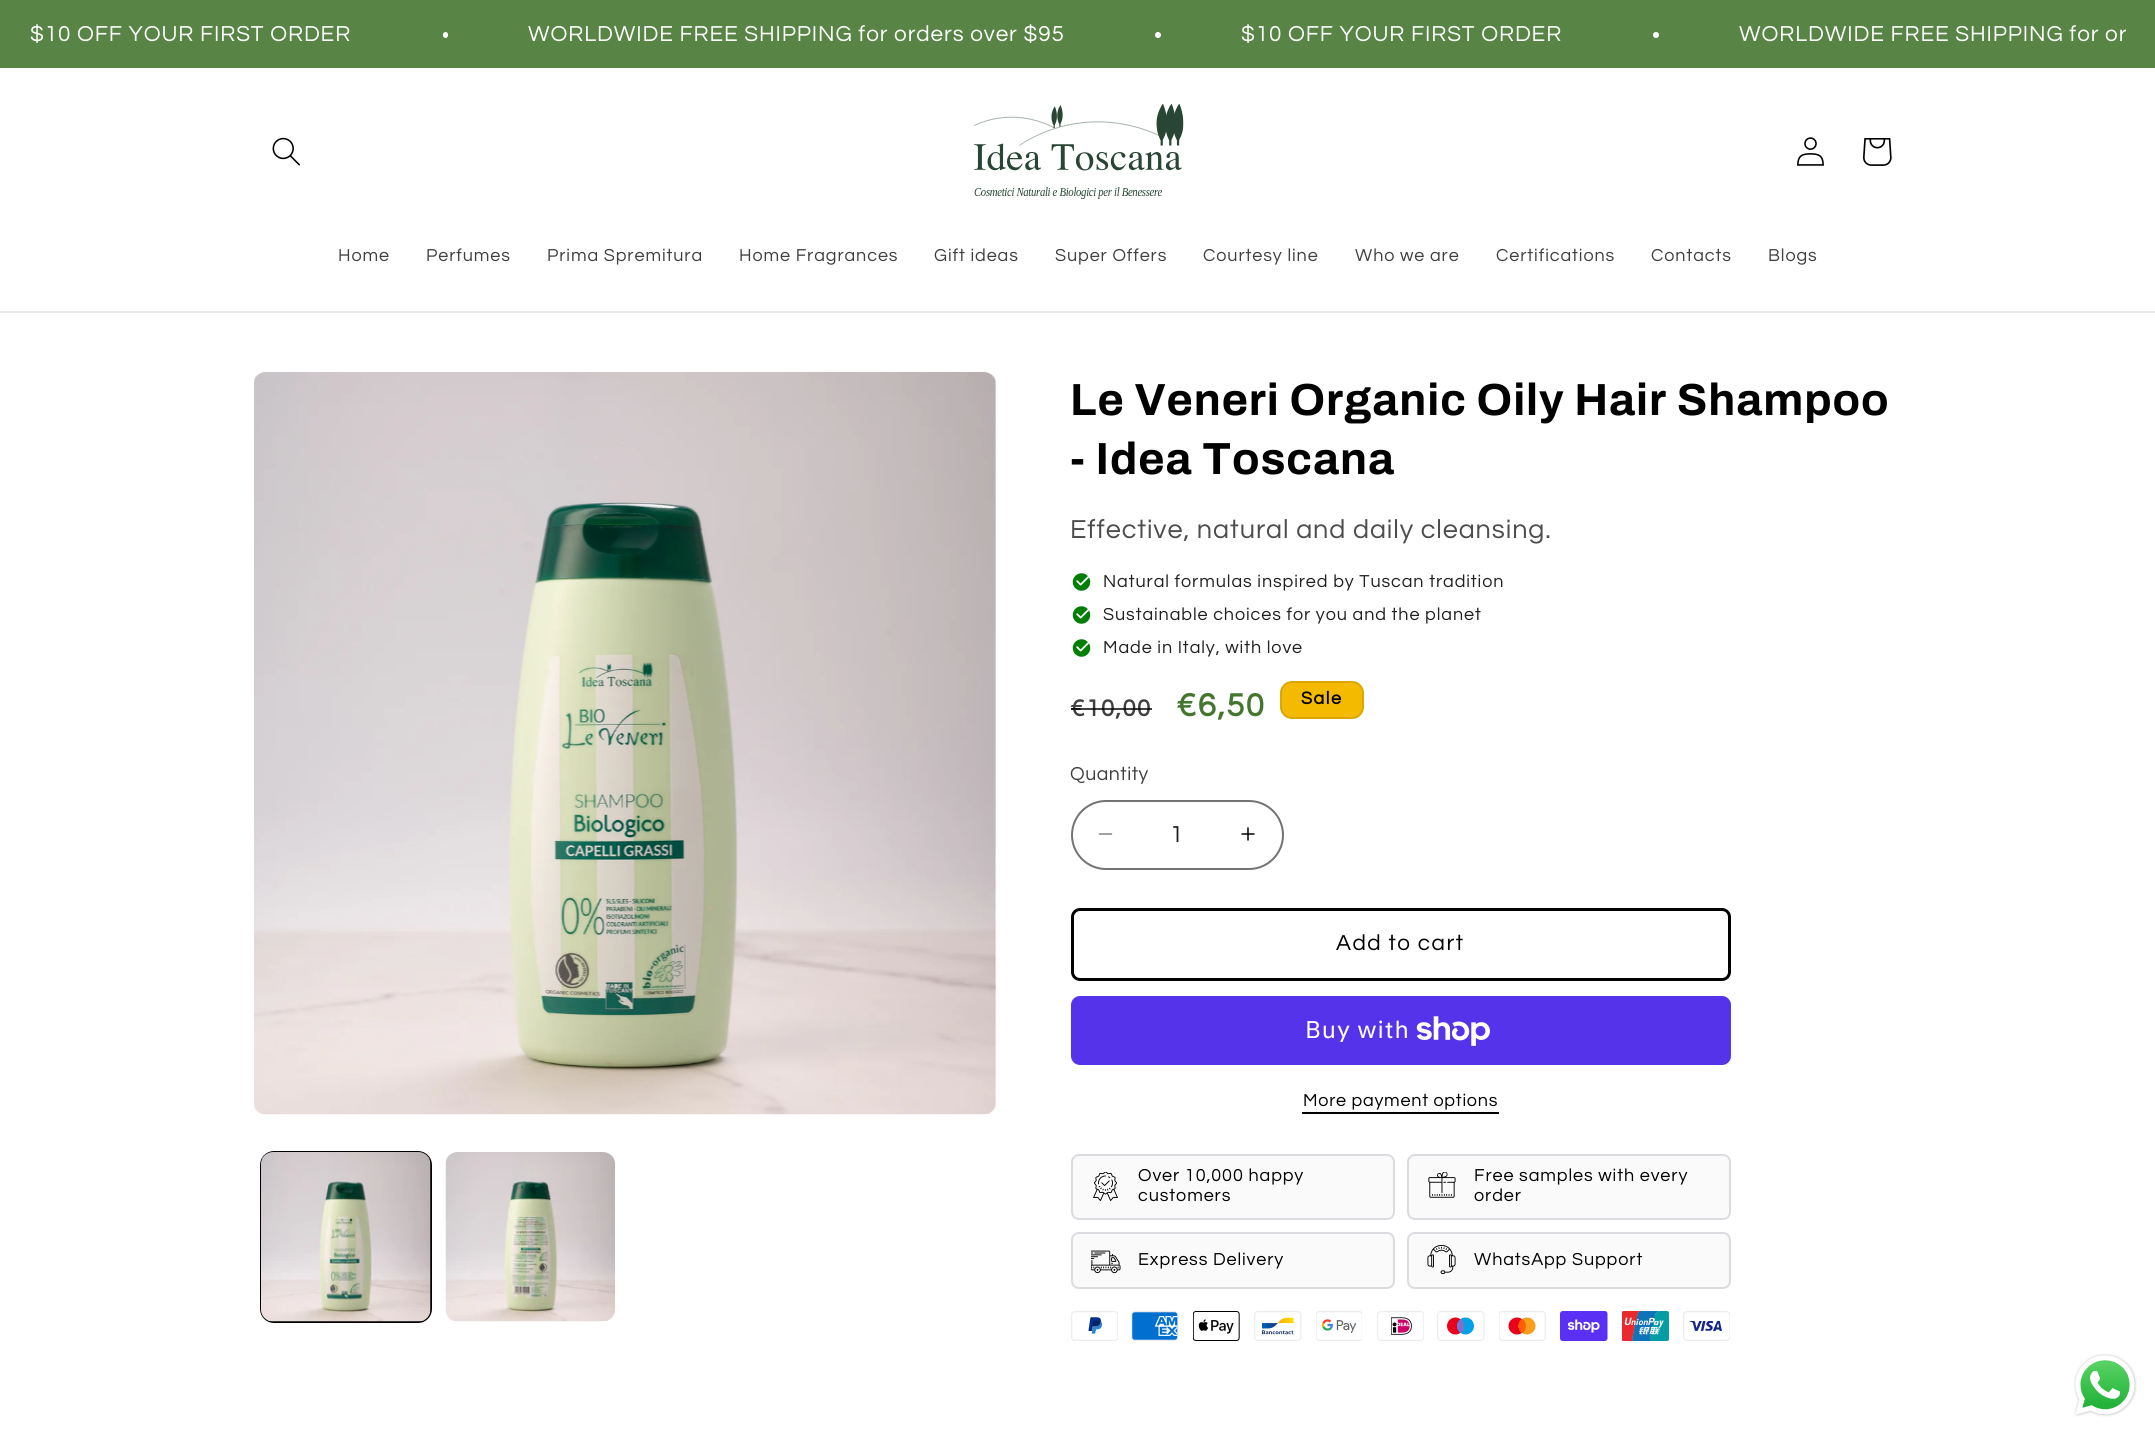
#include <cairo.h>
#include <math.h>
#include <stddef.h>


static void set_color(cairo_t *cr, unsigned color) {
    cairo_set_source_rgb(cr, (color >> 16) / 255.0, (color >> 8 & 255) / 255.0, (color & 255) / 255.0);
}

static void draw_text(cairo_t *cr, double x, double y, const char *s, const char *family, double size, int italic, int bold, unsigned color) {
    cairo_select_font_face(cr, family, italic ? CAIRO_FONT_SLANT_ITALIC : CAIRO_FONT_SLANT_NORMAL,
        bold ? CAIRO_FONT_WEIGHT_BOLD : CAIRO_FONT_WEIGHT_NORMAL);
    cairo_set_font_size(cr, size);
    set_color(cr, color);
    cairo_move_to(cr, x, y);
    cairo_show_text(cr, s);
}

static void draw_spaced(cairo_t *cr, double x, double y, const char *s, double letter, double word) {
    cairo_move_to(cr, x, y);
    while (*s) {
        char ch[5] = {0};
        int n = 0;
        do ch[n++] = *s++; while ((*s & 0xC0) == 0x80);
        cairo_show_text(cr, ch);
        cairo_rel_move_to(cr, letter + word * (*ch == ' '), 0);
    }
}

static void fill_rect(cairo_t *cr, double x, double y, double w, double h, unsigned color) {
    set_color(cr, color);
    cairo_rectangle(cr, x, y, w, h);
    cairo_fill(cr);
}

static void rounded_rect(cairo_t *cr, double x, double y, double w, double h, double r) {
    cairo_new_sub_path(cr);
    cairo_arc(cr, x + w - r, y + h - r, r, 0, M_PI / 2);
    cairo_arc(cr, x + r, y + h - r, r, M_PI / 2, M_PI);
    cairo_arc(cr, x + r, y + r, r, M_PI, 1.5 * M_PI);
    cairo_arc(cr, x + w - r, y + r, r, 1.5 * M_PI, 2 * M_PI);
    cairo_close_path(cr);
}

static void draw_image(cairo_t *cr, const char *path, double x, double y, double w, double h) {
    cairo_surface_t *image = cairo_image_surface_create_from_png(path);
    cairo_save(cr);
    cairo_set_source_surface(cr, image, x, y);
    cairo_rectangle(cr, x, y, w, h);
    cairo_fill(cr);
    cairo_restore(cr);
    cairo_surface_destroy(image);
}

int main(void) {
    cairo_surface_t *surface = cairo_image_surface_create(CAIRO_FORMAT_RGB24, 2155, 1435);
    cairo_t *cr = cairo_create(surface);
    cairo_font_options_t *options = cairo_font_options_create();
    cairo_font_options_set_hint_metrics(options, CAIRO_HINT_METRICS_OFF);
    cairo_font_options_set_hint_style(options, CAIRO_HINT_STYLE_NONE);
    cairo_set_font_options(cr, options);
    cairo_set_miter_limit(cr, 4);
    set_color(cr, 0xFFFFFF);
    cairo_paint(cr);
    fill_rect(cr, 0, 0, 2155, 68, 0x588445);
    cairo_select_font_face(cr, "Questrial", CAIRO_FONT_SLANT_NORMAL, CAIRO_FONT_WEIGHT_NORMAL);
    cairo_set_font_size(cr, 22.5);
    set_color(cr, 0xFFFFFF);
    draw_spaced(cr, 30, 41, "$10 OFF YOUR FIRST ORDER", 0.9, 0);
    rounded_rect(cr, 443, 32, 5, 6, 2.5);
    cairo_fill(cr);
    draw_spaced(cr, 528, 41, "WORLDWIDE FREE SHIPPING for orders over $95", 0.9, 0);
    cairo_new_path(cr);
    cairo_arc(cr, 1158, 35, 3, 0, 2 * M_PI);
    cairo_fill(cr);
    draw_spaced(cr, 1241, 41, "$10 OFF YOUR FIRST ORDER", 0.9, 0);
    cairo_new_path(cr);
    cairo_arc(cr, 1656, 35, 3, 0, 2 * M_PI);
    cairo_fill(cr);
    cairo_save(cr);
    cairo_rectangle(cr, 30, 23, 2096, 22);
    cairo_clip(cr);
    draw_spaced(cr, 1739, 41, "WORLDWIDE FREE SHIPPING for or", 0.9, 0);
    cairo_restore(cr);
    fill_rect(cr, 0, 311, 2155, 2, 0xEBEBEB);
    draw_image(cr, "assets/img1.png", 272, 137, 28, 29);
    draw_image(cr, "assets/img2.png", 974, 104, 210, 95);
    draw_image(cr, "assets/img3.png", 1797, 137, 27, 29);
    draw_image(cr, "assets/img4.png", 1863, 138, 29, 28);
    cairo_set_font_size(cr, 18);
    set_color(cr, 0x404040);
    draw_spaced(cr, 338, 261, "Home", 0.9, 0);
    draw_spaced(cr, 426, 261, "Perfumes", 0.9, 0);
    draw_spaced(cr, 547, 261, "Prima Spremitura", 0.9, 0);
    draw_spaced(cr, 739, 261, "Home Fragrances", 0.9, 0);
    draw_spaced(cr, 934, 261, "Gift ideas", 0.9, 0);
    draw_spaced(cr, 1055, 261, "Super Offers", 0.9, 0);
    draw_spaced(cr, 1203, 261, "Courtesy line", 0.9, 0);
    draw_spaced(cr, 1355, 261, "Who we are", 0.9, 0);
    draw_spaced(cr, 1496, 261, "Certifications", 0.9, 0);
    draw_spaced(cr, 1651, 261, "Contacts", 0.9, 0);
    draw_spaced(cr, 1768, 261, "Blogs", 0.9, 0);
    draw_image(cr, "assets/img5.png", 254, 372, 742, 743);
    rounded_rect(cr, 261, 1152, 170, 170, 13);
    set_color(cr, 0x000000);
    cairo_stroke(cr);
    draw_image(cr, "assets/img6.png", 261, 1152, 170, 170);
    draw_image(cr, "assets/img7.png", 445, 1152, 170, 170);
    cairo_select_font_face(cr, "Archivo", CAIRO_FONT_SLANT_NORMAL, CAIRO_FONT_WEIGHT_BOLD);
    cairo_set_font_size(cr, 45);
    draw_spaced(cr, 1070, 415, "Le Veneri Organic Oily Hair Shampoo", 0.9, 0);
    draw_spaced(cr, 1070, 474, "- Idea Toscana", 0.9, 0);
    cairo_select_font_face(cr, "Questrial", CAIRO_FONT_SLANT_NORMAL, CAIRO_FONT_WEIGHT_NORMAL);
    cairo_set_font_size(cr, 27);
    set_color(cr, 0x4D4D4D);
    draw_spaced(cr, 1070, 538, "Effective, natural and daily cleansing.", 0.9, 0);
    draw_image(cr, "assets/img8.png", 1072, 573, 19, 18);
    cairo_set_font_size(cr, 18);
    set_color(cr, 0x212121);
    draw_spaced(cr, 1103, 587, "Natural formulas inspired by Tuscan tradition", 0.9, 0);
    draw_image(cr, "assets/img8.png", 1072, 606, 19, 18);
    draw_spaced(cr, 1103, 620, "Sustainable choices for you and the planet", 0.9, 0);
    draw_image(cr, "assets/img8.png", 1072, 639, 19, 18);
    draw_spaced(cr, 1103, 653, "Made in Italy, with love", 0.9, 0);
    cairo_select_font_face(cr, "Questrial", CAIRO_FONT_SLANT_NORMAL, CAIRO_FONT_WEIGHT_BOLD);
    cairo_set_font_size(cr, 24);
    set_color(cr, 0x404040);
    draw_spaced(cr, 1070, 716, "€10,00", 1.5, 0);
    cairo_set_source_rgba(cr, 0, 0, 0, 0.75);
    cairo_rectangle(cr, 1071, 708, 81, 2);
    cairo_fill(cr);
    cairo_set_font_size(cr, 33);
    set_color(cr, 0x457630);
    draw_spaced(cr, 1176, 716, "€6,50", 1.5, 0);
    set_color(cr, 0xF4BA00);
    rounded_rect(cr, 1280, 681, 84, 38, 12);
    cairo_fill(cr);
    rounded_rect(cr, 1281, 682, 82, 36, 11);
    cairo_set_source_rgba(cr, 0, 0, 0, 0.1);
    cairo_stroke(cr);
    cairo_set_font_size(cr, 18);
    set_color(cr, 0x000000);
    draw_spaced(cr, 1301, 704, "Sale", 1.5, 0);
    cairo_select_font_face(cr, "Questrial", CAIRO_FONT_SLANT_NORMAL, CAIRO_FONT_WEIGHT_NORMAL);
    cairo_set_font_size(cr, 19.5);
    set_color(cr, 0x404040);
    draw_spaced(cr, 1070, 780, "Quantity", 0.5, 0);
    draw_image(cr, "assets/img9.png", 1098, 833, 15, 2);
    draw_image(cr, "assets/img10.png", 1241, 827, 14, 14);
    rounded_rect(cr, 1072, 801, 211, 68, 34);
    set_color(cr, 0x737373);
    cairo_stroke(cr);
    draw_text(cr, 1170, 842, "1", "Questrial", 24, 0, 0, 0x212121);
    rounded_rect(cr, 1072.5, 909.5, 657, 70, 7.5);
    set_color(cr, 0x000000);
    cairo_set_line_width(cr, 3);
    cairo_stroke(cr);
    cairo_set_font_size(cr, 22.5);
    draw_spaced(cr, 1336, 950, "Add to cart", 1.5, 0);
    set_color(cr, 0x5433EB);
    rounded_rect(cr, 1071, 996, 660, 69, 9);
    cairo_fill(cr);
    cairo_select_font_face(cr, "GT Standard", CAIRO_FONT_SLANT_NORMAL, CAIRO_FONT_WEIGHT_NORMAL);
    cairo_set_font_size(cr, 24);
    set_color(cr, 0xFFFFFF);
    draw_spaced(cr, 1305, 1038, "Buy with", 0.9, 0);
    draw_image(cr, "assets/img11.png", 1416, 1016, 74, 30);
    cairo_select_font_face(cr, "Questrial", CAIRO_FONT_SLANT_NORMAL, CAIRO_FONT_WEIGHT_NORMAL);
    cairo_set_font_size(cr, 18);
    set_color(cr, 0x000000);
    draw_spaced(cr, 1303, 1106, "More payment options", 0.75, 0);
    fill_rect(cr, 1302, 1112, 197, 2, 0x000000);
    set_color(cr, 0xFAFAFA);
    rounded_rect(cr, 1072, 1155, 322, 64, 7);
    cairo_fill_preserve(cr);
    set_color(cr, 0xDADCE0);
    cairo_set_line_width(cr, 2);
    cairo_stroke(cr);
    draw_image(cr, "assets/img12.png", 1093, 1172, 25, 29);
    set_color(cr, 0x000000);
    draw_spaced(cr, 1138, 1181, "Over 10,000 happy", 0.9, 0);
    draw_spaced(cr, 1138, 1201, "customers", 0.9, 0);
    set_color(cr, 0xFAFAFA);
    rounded_rect(cr, 1408, 1155, 322, 64, 7);
    cairo_fill_preserve(cr);
    set_color(cr, 0xDADCE0);
    cairo_stroke(cr);
    draw_image(cr, "assets/img13.png", 1428, 1172, 28, 26);
    set_color(cr, 0x000000);
    draw_spaced(cr, 1474, 1181, "Free samples with every", 0.9, 0);
    draw_spaced(cr, 1474, 1201, "order", 0.9, 0);
    set_color(cr, 0xFAFAFA);
    rounded_rect(cr, 1072, 1233, 322, 55, 7);
    cairo_fill_preserve(cr);
    set_color(cr, 0xDADCE0);
    cairo_stroke(cr);
    draw_image(cr, "assets/img14.png", 1091, 1250, 30, 24);
    set_color(cr, 0x000000);
    draw_spaced(cr, 1138, 1265, "Express Delivery", 0.9, 0);
    set_color(cr, 0xFAFAFA);
    rounded_rect(cr, 1408, 1233, 322, 55, 7);
    cairo_fill_preserve(cr);
    set_color(cr, 0xDADCE0);
    cairo_stroke(cr);
    draw_image(cr, "assets/img15.png", 1427, 1245, 29, 30);
    set_color(cr, 0x000000);
    draw_spaced(cr, 1474, 1265, "WhatsApp Support", 0.9, 0);
    draw_image(cr, "assets/img16.png", 1071, 1311, 47, 30);
    draw_image(cr, "assets/img17.png", 1131, 1311, 48, 30);
    draw_image(cr, "assets/img18.png", 1193, 1311, 47, 30);
    draw_image(cr, "assets/img19.png", 1254, 1311, 48, 30);
    draw_image(cr, "assets/img20.png", 1316, 1311, 46, 30);
    draw_image(cr, "assets/img21.png", 1377, 1311, 47, 30);
    draw_image(cr, "assets/img22.png", 1437, 1311, 48, 30);
    draw_image(cr, "assets/img23.png", 1499, 1311, 47, 30);
    draw_image(cr, "assets/img24.png", 1560, 1311, 48, 30);
    draw_image(cr, "assets/img25.png", 1622, 1311, 47, 30);
    draw_image(cr, "assets/img26.png", 1683, 1311, 47, 30);
    draw_image(cr, "assets/img27.png", 2074, 1353, 63, 64);
    cairo_surface_write_to_png(surface, "output.png");
    cairo_font_options_destroy(options);
    cairo_destroy(cr);
    cairo_surface_destroy(surface);
    return 0;
}
